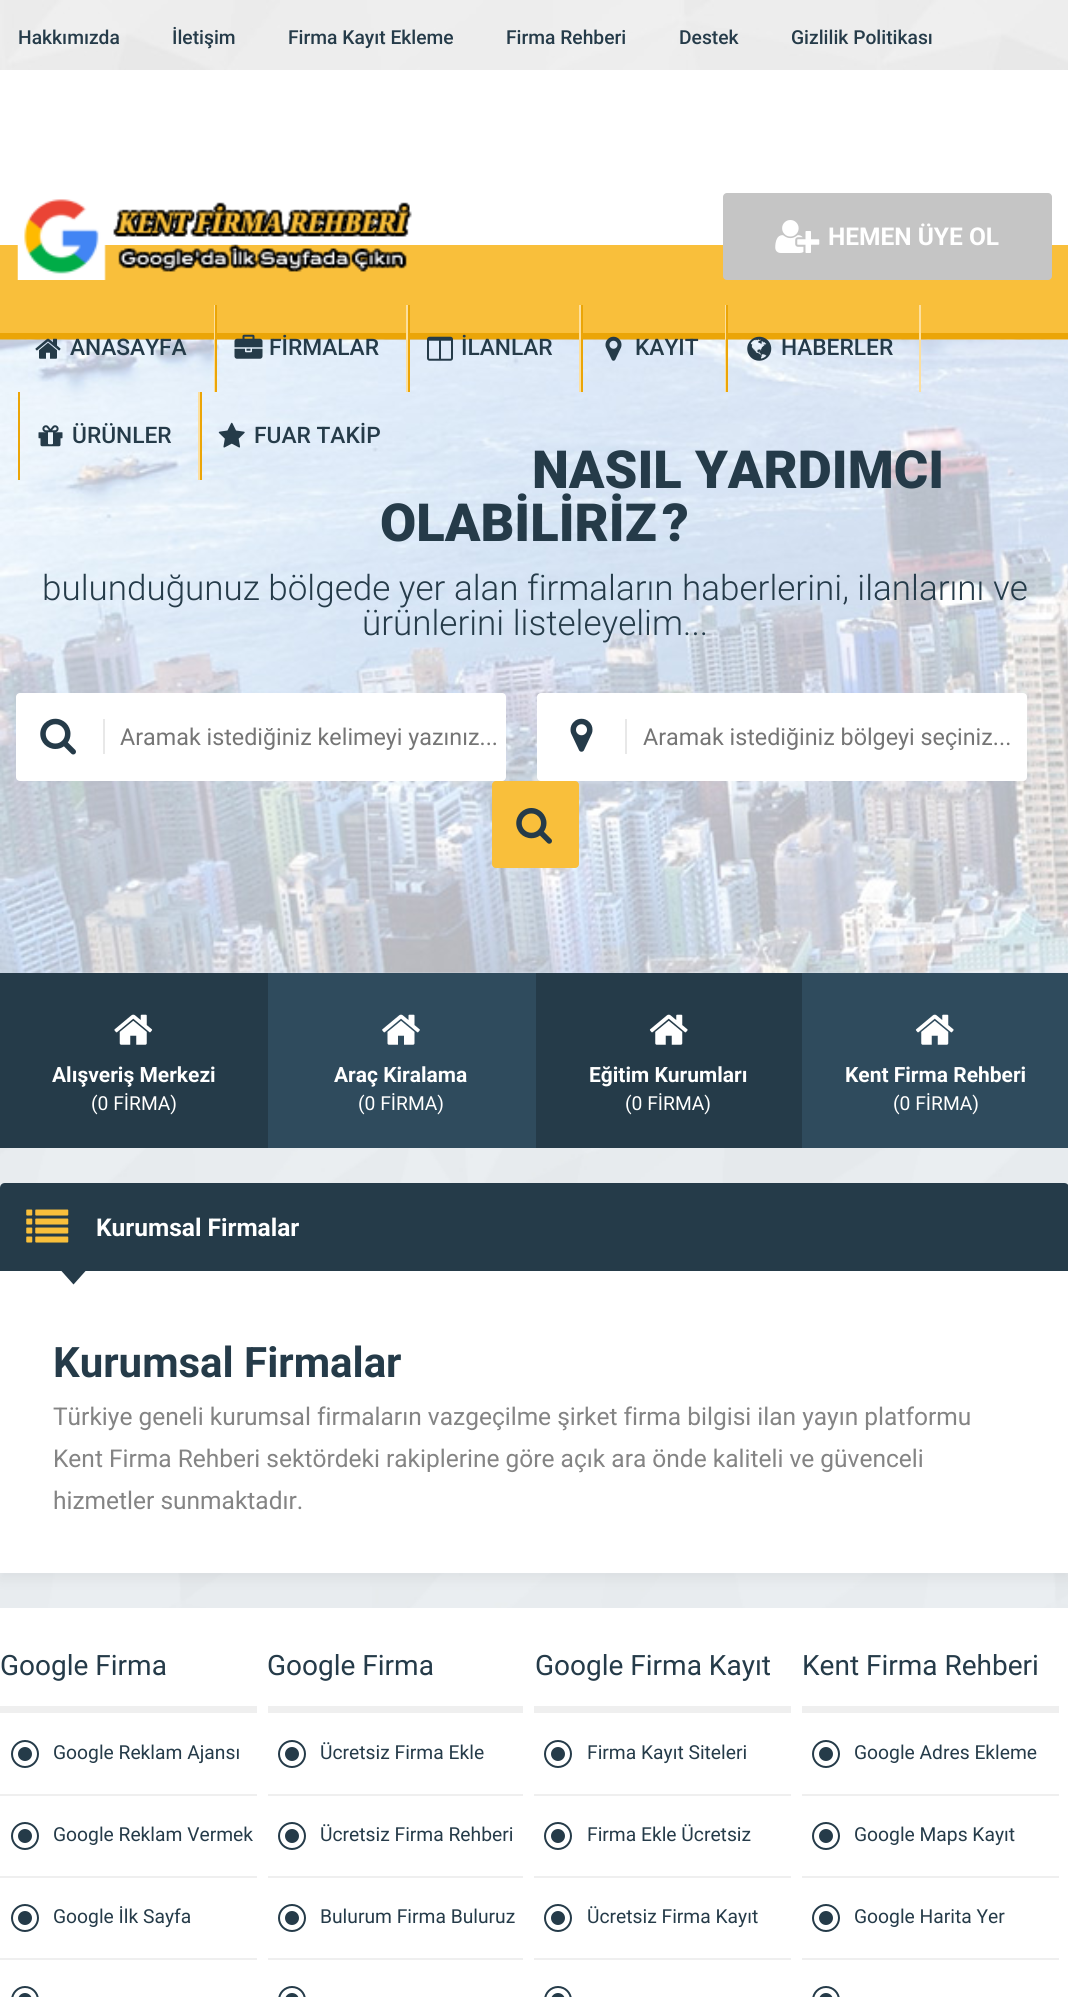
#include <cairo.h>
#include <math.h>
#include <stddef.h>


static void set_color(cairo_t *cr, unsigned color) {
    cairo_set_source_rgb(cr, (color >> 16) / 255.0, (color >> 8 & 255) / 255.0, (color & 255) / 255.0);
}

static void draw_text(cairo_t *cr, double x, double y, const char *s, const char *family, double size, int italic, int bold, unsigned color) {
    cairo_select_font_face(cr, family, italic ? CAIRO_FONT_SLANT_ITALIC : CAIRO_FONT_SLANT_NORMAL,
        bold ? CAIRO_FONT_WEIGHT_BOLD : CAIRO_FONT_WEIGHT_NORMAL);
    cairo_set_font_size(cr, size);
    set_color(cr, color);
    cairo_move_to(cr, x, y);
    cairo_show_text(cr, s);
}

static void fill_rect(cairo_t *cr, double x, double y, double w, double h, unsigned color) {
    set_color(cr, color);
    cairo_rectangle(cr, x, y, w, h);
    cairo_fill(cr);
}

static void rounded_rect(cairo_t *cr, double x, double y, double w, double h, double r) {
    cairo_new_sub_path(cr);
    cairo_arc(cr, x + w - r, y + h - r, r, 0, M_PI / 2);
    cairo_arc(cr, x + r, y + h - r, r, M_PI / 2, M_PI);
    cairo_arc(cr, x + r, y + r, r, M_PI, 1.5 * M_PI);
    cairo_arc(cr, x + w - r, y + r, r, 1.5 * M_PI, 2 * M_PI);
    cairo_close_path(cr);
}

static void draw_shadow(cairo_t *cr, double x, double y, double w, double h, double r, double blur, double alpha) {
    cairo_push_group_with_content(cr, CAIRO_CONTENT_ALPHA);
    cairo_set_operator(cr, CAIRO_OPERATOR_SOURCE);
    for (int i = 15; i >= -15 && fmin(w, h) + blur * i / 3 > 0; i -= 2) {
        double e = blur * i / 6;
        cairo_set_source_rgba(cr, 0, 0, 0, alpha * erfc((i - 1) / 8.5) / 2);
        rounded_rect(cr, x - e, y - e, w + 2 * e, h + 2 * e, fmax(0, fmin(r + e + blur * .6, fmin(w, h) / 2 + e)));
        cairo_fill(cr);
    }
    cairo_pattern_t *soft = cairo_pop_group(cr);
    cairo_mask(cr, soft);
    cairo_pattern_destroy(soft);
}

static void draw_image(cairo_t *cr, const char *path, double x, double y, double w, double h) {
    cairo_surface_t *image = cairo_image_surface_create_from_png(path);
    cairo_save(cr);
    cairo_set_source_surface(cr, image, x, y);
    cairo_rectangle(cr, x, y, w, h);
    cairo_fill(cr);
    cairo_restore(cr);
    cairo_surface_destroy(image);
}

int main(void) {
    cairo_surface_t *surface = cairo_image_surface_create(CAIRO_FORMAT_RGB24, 1068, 1997);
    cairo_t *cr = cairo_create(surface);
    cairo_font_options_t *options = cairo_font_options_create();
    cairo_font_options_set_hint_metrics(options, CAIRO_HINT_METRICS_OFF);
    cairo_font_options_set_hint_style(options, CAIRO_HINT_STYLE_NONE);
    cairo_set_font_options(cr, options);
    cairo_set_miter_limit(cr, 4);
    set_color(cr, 0xFFFFFF);
    cairo_paint(cr);
    draw_image(cr, "assets/img1.png", 0, 1148, 1068, 460);
    draw_image(cr, "assets/img2.png", 0, 0, 1068, 70);
    draw_text(cr, 18, 44, "Hakkımızda", "Roboto Medium", 19.25, 0, 0, 0x253B49);
    draw_text(cr, 172, 44, "İletişim", "Roboto Medium", 19.25, 0, 0, 0x253B49);
    draw_text(cr, 288, 44, "Firma Kayıt Ekleme", "Roboto Medium", 19.25, 0, 0, 0x253B49);
    draw_text(cr, 506, 44, "Firma Rehberi", "Roboto Medium", 19.25, 0, 0, 0x253B49);
    draw_text(cr, 679, 44, "Destek", "Roboto Medium", 19.25, 0, 0, 0x253B49);
    draw_text(cr, 791, 44, "Gizlilik Politikası", "Roboto Medium", 19.25, 0, 0, 0x253B49);
    fill_rect(cr, 0, 245, 1068, 88, 0xF9BF3B);
    draw_image(cr, "assets/img3.png", 17, 199, 395, 81);
    set_color(cr, 0xC5C5C5);
    rounded_rect(cr, 723, 193, 329, 87, 4);
    cairo_fill(cr);
    draw_image(cr, "assets/img4.png", 775, 220, 45, 33);
    draw_text(cr, 828, 245, "HEMEN ÜYE OL", "Roboto", 24.5, 0, 1, 0xFFFFFF);
    fill_rect(cr, 0, 333, 1068, 7, 0xEBA507);
    draw_image(cr, "assets/img12.png", 0, 339, 1068, 634);
    fill_rect(cr, 214, 305, 1, 87, 0xFCDF9E);
    draw_image(cr, "assets/img5.png", 35, 338, 26, 21);
    draw_text(cr, 70, 355, "ANASAYFA", "Roboto Medium", 22.75, 0, 0, 0x253B49);
    fill_rect(cr, 406, 305, 2, 87, 0xFCDF9E);
    fill_rect(cr, 215, 305, 2, 87, 0xEBA507);
    draw_image(cr, "assets/img6.png", 234, 334, 29, 25);
    draw_text(cr, 269, 355, "FİRMALAR", "Roboto Medium", 22.75, 0, 0, 0x253B49);
    fill_rect(cr, 579, 305, 2, 87, 0xFCDF9E);
    fill_rect(cr, 408, 305, 2, 87, 0xEBA507);
    draw_image(cr, "assets/img7.png", 427, 336, 26, 25);
    draw_text(cr, 461, 355, "İLANLAR", "Roboto Medium", 22.75, 0, 0, 0x253B49);
    fill_rect(cr, 725, 305, 1, 87, 0xFCDF9E);
    fill_rect(cr, 581, 305, 2, 87, 0xEBA507);
    draw_image(cr, "assets/img8.png", 605, 336, 17, 25);
    draw_text(cr, 635, 355, "KAYIT", "Roboto Medium", 22.75, 0, 0, 0x253B49);
    fill_rect(cr, 919, 305, 2, 87, 0xFCDF9E);
    fill_rect(cr, 726, 305, 2, 87, 0xEBA507);
    draw_image(cr, "assets/img9.png", 747, 336, 25, 25);
    draw_text(cr, 781, 355, "HABERLER", "Roboto Medium", 22.75, 0, 0, 0x253B49);
    fill_rect(cr, 198, 392, 2, 88, 0xFCDF9E);
    fill_rect(cr, 18, 392, 2, 88, 0xEBA507);
    draw_image(cr, "assets/img10.png", 38, 425, 25, 22);
    draw_text(cr, 72, 443, "ÜRÜNLER", "Roboto Medium", 22.75, 0, 0, 0x253B49);
    fill_rect(cr, 200, 392, 2, 88, 0xEBA507);
    draw_image(cr, "assets/img11.png", 218, 422, 27, 26);
    draw_text(cr, 254, 443, "FUAR TAKİP", "Roboto Medium", 22.75, 0, 0, 0x253B49);
    draw_text(cr, 532, 488, "NASIL YARDIMCI", "Roboto Black", 52.5, 0, 0, 0x253B49);
    draw_text(cr, 380, 541, "OLABİLİRİZ", "Roboto Black", 52.5, 0, 0, 0x253B49);
    draw_text(cr, 662, 541, "?", "Roboto Black", 52.5, 0, 0, 0x253B49);
    draw_text(cr, 42, 600, "bulunduğunuz bölgede yer alan firmaların haberlerini, ilanlarını ve", "Roboto Light", 35, 0, 0, 0x253B49);
    draw_text(cr, 362, 635, "ürünlerini listeleyelim...", "Roboto Light", 35, 0, 0, 0x253B49);
    set_color(cr, 0xFFFFFF);
    rounded_rect(cr, 16, 693, 490, 88, 4);
    cairo_fill(cr);
    fill_rect(cr, 103, 719, 2, 35, 0xE8E8E8);
    draw_image(cr, "assets/img13.png", 40, 718, 36, 37);
    draw_text(cr, 120, 745, "Aramak istediğiniz kelimeyi yazınız...", "Roboto", 23.3, 0, 0, 0x757575);
    set_color(cr, 0xFFFFFF);
    rounded_rect(cr, 537, 693, 490, 88, 4);
    cairo_fill(cr);
    fill_rect(cr, 625, 719, 2, 35, 0xE8E8E8);
    draw_image(cr, "assets/img14.png", 570, 718, 23, 34);
    draw_text(cr, 643, 745, "Aramak istediğiniz bölgeyi seçiniz...", "Roboto", 23.3, 0, 0, 0x757575);
    set_color(cr, 0xF9BF3B);
    rounded_rect(cr, 492, 781, 87, 87, 4);
    cairo_fill(cr);
    draw_image(cr, "assets/img15.png", 516, 808, 36, 36);
    fill_rect(cr, 0, 973, 268, 175, 0x253B49);
    draw_image(cr, "assets/img16.png", 114, 1014, 39, 31);
    draw_text(cr, 52, 1082, "Alışveriş Merkezi", "Roboto", 21, 0, 1, 0xFFFFFF);
    draw_text(cr, 91, 1110, "(0 FİRMA)", "Roboto", 19.25, 0, 0, 0xFFFFFF);
    fill_rect(cr, 268, 973, 268, 175, 0x2F4B5D);
    draw_image(cr, "assets/img17.png", 382, 1014, 38, 31);
    draw_text(cr, 334, 1082, "Araç Kiralama", "Roboto", 21, 0, 1, 0xFFFFFF);
    draw_text(cr, 358, 1110, "(0 FİRMA)", "Roboto", 19.25, 0, 0, 0xFFFFFF);
    fill_rect(cr, 536, 973, 266, 175, 0x253B49);
    draw_image(cr, "assets/img18.png", 649, 1014, 39, 31);
    draw_text(cr, 589, 1082, "Eğitim Kurumları", "Roboto", 21, 0, 1, 0xFFFFFF);
    draw_text(cr, 625, 1110, "(0 FİRMA)", "Roboto", 19.25, 0, 0, 0xFFFFFF);
    fill_rect(cr, 802, 973, 266, 175, 0x2F4B5D);
    draw_image(cr, "assets/img19.png", 915, 1014, 39, 31);
    draw_text(cr, 845, 1082, "Kent Firma Rehberi", "Roboto", 21, 0, 1, 0xFFFFFF);
    draw_text(cr, 893, 1110, "(0 FİRMA)", "Roboto", 19.25, 0, 0, 0xFFFFFF);
    set_color(cr, 0x000000);
    draw_shadow(cr, 0, 1276, 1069, 303, 0, 7, 0.06);
    set_color(cr, 0x253B49);
    cairo_new_path(cr);
    cairo_move_to(cr, 5, 1183);
    cairo_line_to(cr, 1064, 1183);
    cairo_curve_to(cr, 1067, 1183, 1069, 1185, 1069, 1188);
    cairo_line_to(cr, 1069, 1271);
    cairo_line_to(cr, 0, 1271);
    cairo_line_to(cr, 0, 1188);
    cairo_curve_to(cr, 0, 1185, 2, 1183, 5, 1183);
    cairo_close_path(cr);
    cairo_fill(cr);
    draw_image(cr, "assets/img20.png", 26, 1209, 43, 34);
    cairo_save(cr);
    cairo_rectangle(cr, 96, 1183, 203, 88);
    cairo_clip(cr);
    draw_text(cr, 96, 1236, "Kurumsal Firmalar", "Roboto", 24.5, 0, 1, 0xFFFFFF);
    cairo_restore(cr);
    fill_rect(cr, 0, 1271, 1068, 302, 0xFFFFFF);
    set_color(cr, 0x253B49);
    cairo_new_path(cr);
    cairo_move_to(cr, 61, 1270.5);
    cairo_line_to(cr, 86, 1270.5);
    cairo_line_to(cr, 73.5, 1284.5);
    cairo_close_path(cr);
    cairo_fill(cr);
    draw_text(cr, 53, 1377, "Kurumsal Firmalar", "Roboto", 42, 0, 1, 0x253B49);
    draw_text(cr, 53, 1425, "Türkiye geneli kurumsal firmaların vazgeçilme şirket firma bilgisi ilan yayın platformu", "Roboto", 24.5, 0, 0, 0x848484);
    draw_text(cr, 53, 1467, "Kent Firma Rehberi sektördeki rakiplerine göre açık ara önde kaliteli ve güvenceli", "Roboto", 24.5, 0, 0, 0x848484);
    draw_text(cr, 53, 1509, "hizmetler sunmaktadır.", "Roboto", 24.5, 0, 0, 0x848484);
    fill_rect(cr, 0, 1706, 257, 7, 0xEFEFEF);
    draw_text(cr, 0, 1675, "Google Firma", "Roboto", 28, 0, 0, 0x253B49);
    cairo_new_path(cr);
    cairo_arc(cr, 25, 1754, 7, 0, 2 * M_PI);
    cairo_fill(cr);
    cairo_arc(cr, 25, 1754, 13, 0, 2 * M_PI);
    cairo_stroke(cr);
    fill_rect(cr, 0, 1794, 257, 2, 0xEFEFEF);
    draw_text(cr, 53, 1759, "Google Reklam Ajansı", "Roboto", 19.25, 0, 0, 0x253B49);
    cairo_new_path(cr);
    cairo_arc(cr, 25, 1836, 7, 0, 2 * M_PI);
    cairo_fill(cr);
    cairo_arc(cr, 25, 1836, 13, 0, 2 * M_PI);
    cairo_stroke(cr);
    fill_rect(cr, 0, 1876, 257, 2, 0xEFEFEF);
    draw_text(cr, 53, 1841, "Google Reklam Vermek", "Roboto", 19.25, 0, 0, 0x253B49);
    cairo_new_path(cr);
    cairo_arc(cr, 25, 1918, 7, 0, 2 * M_PI);
    cairo_fill(cr);
    cairo_arc(cr, 25, 1918, 13, 0, 2 * M_PI);
    cairo_stroke(cr);
    fill_rect(cr, 0, 1958, 257, 2, 0xEFEFEF);
    draw_text(cr, 53, 1923, "Google İlk Sayfa", "Roboto", 19.25, 0, 0, 0x253B49);
    rounded_rect(cr, 18, 1993, 14, 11, 7);
    cairo_fill(cr);
    rounded_rect(cr, 12, 1987, 26, 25, 13);
    cairo_stroke(cr);
    fill_rect(cr, 268, 1706, 255, 7, 0xEFEFEF);
    draw_text(cr, 267, 1675, "Google Firma", "Roboto", 28, 0, 0, 0x253B49);
    cairo_new_path(cr);
    cairo_arc(cr, 292, 1754, 7, 0, 2 * M_PI);
    cairo_fill(cr);
    cairo_arc(cr, 292, 1754, 13, 0, 2 * M_PI);
    cairo_stroke(cr);
    fill_rect(cr, 268, 1794, 255, 2, 0xEFEFEF);
    draw_text(cr, 320, 1759, "Ücretsiz Firma Ekle", "Roboto", 19.25, 0, 0, 0x253B49);
    cairo_new_path(cr);
    cairo_arc(cr, 292, 1836, 7, 0, 2 * M_PI);
    cairo_fill(cr);
    cairo_arc(cr, 292, 1836, 13, 0, 2 * M_PI);
    cairo_stroke(cr);
    fill_rect(cr, 268, 1876, 255, 2, 0xEFEFEF);
    draw_text(cr, 320, 1841, "Ücretsiz Firma Rehberi", "Roboto", 19.25, 0, 0, 0x253B49);
    cairo_new_path(cr);
    cairo_arc(cr, 292, 1918, 7, 0, 2 * M_PI);
    cairo_fill(cr);
    cairo_arc(cr, 292, 1918, 13, 0, 2 * M_PI);
    cairo_stroke(cr);
    fill_rect(cr, 268, 1958, 255, 2, 0xEFEFEF);
    draw_text(cr, 320, 1923, "Bulurum Firma Buluruz", "Roboto", 19.25, 0, 0, 0x253B49);
    rounded_rect(cr, 285, 1993, 14, 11, 7);
    cairo_fill(cr);
    rounded_rect(cr, 279, 1987, 26, 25, 13);
    cairo_stroke(cr);
    fill_rect(cr, 534, 1706, 257, 7, 0xEFEFEF);
    draw_text(cr, 535, 1675, "Google Firma Kayıt", "Roboto", 28, 0, 0, 0x253B49);
    cairo_new_path(cr);
    cairo_arc(cr, 558, 1754, 7, 0, 2 * M_PI);
    cairo_fill(cr);
    cairo_arc(cr, 558, 1754, 13, 0, 2 * M_PI);
    cairo_stroke(cr);
    fill_rect(cr, 534, 1794, 257, 2, 0xEFEFEF);
    draw_text(cr, 587, 1759, "Firma Kayıt Siteleri", "Roboto", 19.25, 0, 0, 0x253B49);
    cairo_new_path(cr);
    cairo_arc(cr, 558, 1836, 7, 0, 2 * M_PI);
    cairo_fill(cr);
    cairo_arc(cr, 558, 1836, 13, 0, 2 * M_PI);
    cairo_stroke(cr);
    fill_rect(cr, 534, 1876, 257, 2, 0xEFEFEF);
    draw_text(cr, 587, 1841, "Firma Ekle Ücretsiz", "Roboto", 19.25, 0, 0, 0x253B49);
    cairo_new_path(cr);
    cairo_arc(cr, 558, 1918, 7, 0, 2 * M_PI);
    cairo_fill(cr);
    cairo_arc(cr, 558, 1918, 13, 0, 2 * M_PI);
    cairo_stroke(cr);
    fill_rect(cr, 534, 1958, 257, 2, 0xEFEFEF);
    draw_text(cr, 587, 1923, "Ücretsiz Firma Kayıt", "Roboto", 19.25, 0, 0, 0x253B49);
    rounded_rect(cr, 551, 1993, 14, 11, 7);
    cairo_fill(cr);
    rounded_rect(cr, 545, 1987, 26, 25, 13);
    cairo_stroke(cr);
    fill_rect(cr, 802, 1706, 257, 7, 0xEFEFEF);
    draw_text(cr, 802, 1675, "Kent Firma Rehberi", "Roboto", 28, 0, 0, 0x253B49);
    cairo_new_path(cr);
    cairo_arc(cr, 826, 1754, 7, 0, 2 * M_PI);
    cairo_fill(cr);
    cairo_arc(cr, 826, 1754, 13, 0, 2 * M_PI);
    cairo_stroke(cr);
    fill_rect(cr, 802, 1794, 257, 2, 0xEFEFEF);
    draw_text(cr, 854, 1759, "Google Adres Ekleme", "Roboto", 19.25, 0, 0, 0x253B49);
    cairo_new_path(cr);
    cairo_arc(cr, 826, 1836, 7, 0, 2 * M_PI);
    cairo_fill(cr);
    cairo_arc(cr, 826, 1836, 13, 0, 2 * M_PI);
    cairo_stroke(cr);
    fill_rect(cr, 802, 1876, 257, 2, 0xEFEFEF);
    draw_text(cr, 854, 1841, "Google Maps Kayıt", "Roboto", 19.25, 0, 0, 0x253B49);
    cairo_new_path(cr);
    cairo_arc(cr, 826, 1918, 7, 0, 2 * M_PI);
    cairo_fill(cr);
    cairo_arc(cr, 826, 1918, 13, 0, 2 * M_PI);
    cairo_stroke(cr);
    fill_rect(cr, 802, 1958, 257, 2, 0xEFEFEF);
    draw_text(cr, 854, 1923, "Google Harita Yer", "Roboto", 19.25, 0, 0, 0x253B49);
    rounded_rect(cr, 819, 1993, 14, 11, 7);
    cairo_fill(cr);
    rounded_rect(cr, 813, 1987, 26, 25, 13);
    cairo_stroke(cr);
    cairo_surface_write_to_png(surface, "output.png");
    cairo_font_options_destroy(options);
    cairo_destroy(cr);
    cairo_surface_destroy(surface);
    return 0;
}
